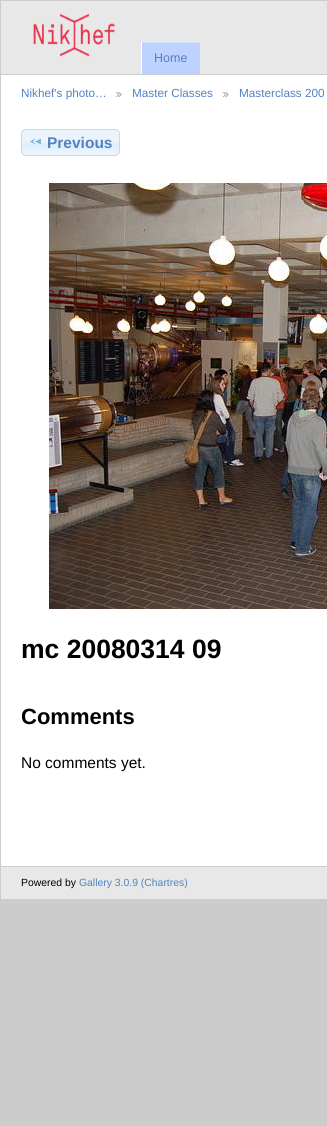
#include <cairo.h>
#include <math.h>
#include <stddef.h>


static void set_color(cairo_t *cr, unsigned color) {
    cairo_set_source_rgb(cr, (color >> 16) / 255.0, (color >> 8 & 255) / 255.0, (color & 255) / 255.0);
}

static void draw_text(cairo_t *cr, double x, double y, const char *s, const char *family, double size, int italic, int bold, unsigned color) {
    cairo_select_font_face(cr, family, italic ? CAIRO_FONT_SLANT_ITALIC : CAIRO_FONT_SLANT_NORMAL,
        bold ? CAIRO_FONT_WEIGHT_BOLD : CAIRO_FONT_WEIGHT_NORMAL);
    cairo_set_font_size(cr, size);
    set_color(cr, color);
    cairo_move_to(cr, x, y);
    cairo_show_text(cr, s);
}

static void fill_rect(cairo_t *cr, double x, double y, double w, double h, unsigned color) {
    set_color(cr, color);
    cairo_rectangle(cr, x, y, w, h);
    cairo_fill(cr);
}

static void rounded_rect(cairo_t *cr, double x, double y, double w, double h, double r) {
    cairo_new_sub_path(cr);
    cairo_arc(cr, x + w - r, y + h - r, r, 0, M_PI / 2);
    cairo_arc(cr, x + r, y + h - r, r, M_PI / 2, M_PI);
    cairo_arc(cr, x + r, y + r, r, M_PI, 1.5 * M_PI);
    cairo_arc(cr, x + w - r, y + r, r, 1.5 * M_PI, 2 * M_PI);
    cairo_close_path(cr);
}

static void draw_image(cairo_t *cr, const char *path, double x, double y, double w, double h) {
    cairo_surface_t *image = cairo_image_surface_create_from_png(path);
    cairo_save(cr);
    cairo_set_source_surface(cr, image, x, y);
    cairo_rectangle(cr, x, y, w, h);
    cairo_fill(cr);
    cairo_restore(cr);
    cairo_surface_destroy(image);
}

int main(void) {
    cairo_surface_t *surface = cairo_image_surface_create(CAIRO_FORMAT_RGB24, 327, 1126);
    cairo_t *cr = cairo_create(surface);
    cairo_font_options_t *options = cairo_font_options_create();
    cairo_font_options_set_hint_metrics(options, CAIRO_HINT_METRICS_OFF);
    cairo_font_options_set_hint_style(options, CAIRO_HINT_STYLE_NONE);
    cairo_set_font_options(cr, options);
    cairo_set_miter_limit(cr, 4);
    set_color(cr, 0xCCCCCC);
    cairo_paint(cr);
    fill_rect(cr, 1, 75, 326, 791, 0xFFFFFF);
    fill_rect(cr, 1, 1, 326, 73, 0xE8E8E8);
    draw_image(cr, "assets/img1.png", 33, 13, 82, 44);
    fill_rect(cr, 142, 43, 58, 31, 0xBDD2FF);
    fill_rect(cr, 141, 42, 59, 1, 0xCFDEFF);
    fill_rect(cr, 141, 42, 1, 32, 0xFFFFFF);
    draw_text(cr, 154, 62, "Home", "Liberation Sans", 12.5, 0, 0, 0x5382BF);
    draw_text(cr, 21, 97, "Nikhef's photo…", "Liberation Sans", 11.75, 0, 0, 0x5382BF);
    draw_image(cr, "assets/img2.png", 116, 92, 6, 5);
    draw_text(cr, 132, 97, "Master Classes", "Liberation Sans", 11.75, 0, 0, 0x5382BF);
    draw_image(cr, "assets/img2.png", 223, 92, 6, 5);
    draw_text(cr, 239, 97, "Masterclass 200", "Liberation Sans", 11.75, 0, 0, 0x5382BF);
    draw_image(cr, "assets/img3.png", 21, 129, 99, 27);
    rounded_rect(cr, 21.5, 129.5, 98, 26, 4.5);
    set_color(cr, 0xC5DBEC);
    cairo_set_line_width(cr, 1);
    cairo_stroke(cr);
    draw_image(cr, "assets/img4.png", 30, 139, 11, 5);
    draw_text(cr, 47, 148, "Previous", "Liberation Sans", 15.5, 0, 1, 0x5382BF);
    draw_image(cr, "assets/img5.png", 49, 183, 278, 426);
    draw_text(cr, 21, 658, "mc 20080314 09", "Liberation Sans", 26.5, 0, 1, 0x000000);
    draw_text(cr, 21, 724, "Comments", "Liberation Sans", 22, 0, 1, 0x000000);
    draw_text(cr, 21, 768, "No comments yet.", "Liberation Sans", 15.5, 0, 0, 0x000000);
    fill_rect(cr, 1, 867, 326, 32, 0xE8E8E8);
    draw_text(cr, 21, 886, "Powered by", "Liberation Sans", 10.4, 0, 0, 0x000000);
    draw_text(cr, 79, 886, "Gallery 3.0.9 (Chartres)", "Liberation Sans", 10.4, 0, 0, 0x5382BF);
    cairo_surface_write_to_png(surface, "output.png");
    cairo_font_options_destroy(options);
    cairo_destroy(cr);
    cairo_surface_destroy(surface);
    return 0;
}
